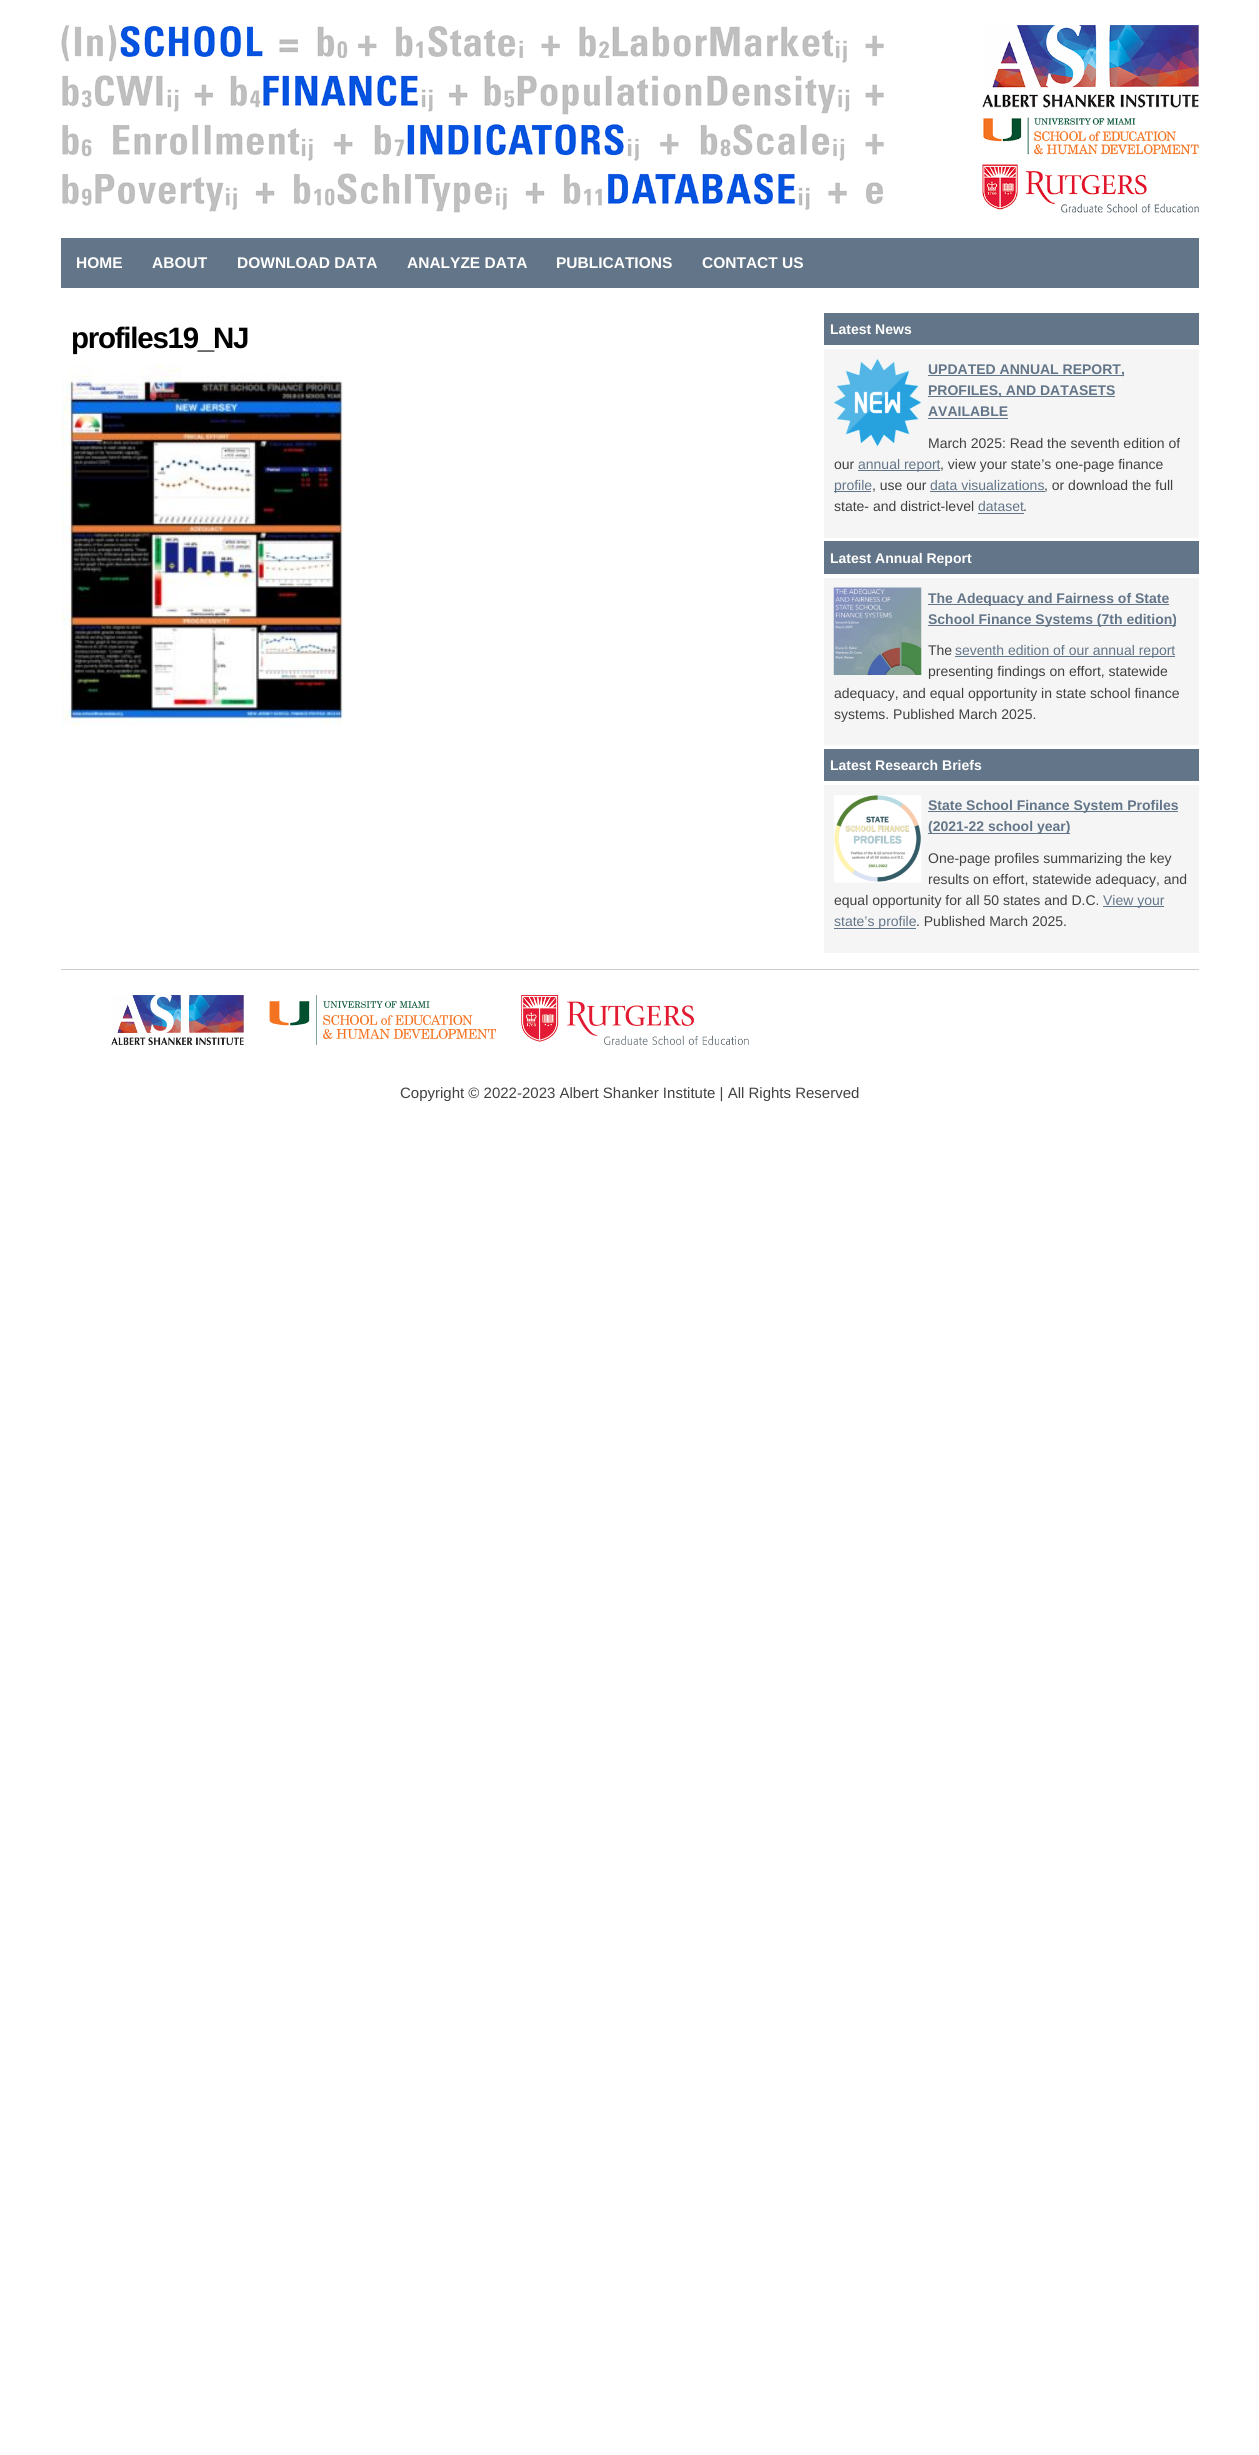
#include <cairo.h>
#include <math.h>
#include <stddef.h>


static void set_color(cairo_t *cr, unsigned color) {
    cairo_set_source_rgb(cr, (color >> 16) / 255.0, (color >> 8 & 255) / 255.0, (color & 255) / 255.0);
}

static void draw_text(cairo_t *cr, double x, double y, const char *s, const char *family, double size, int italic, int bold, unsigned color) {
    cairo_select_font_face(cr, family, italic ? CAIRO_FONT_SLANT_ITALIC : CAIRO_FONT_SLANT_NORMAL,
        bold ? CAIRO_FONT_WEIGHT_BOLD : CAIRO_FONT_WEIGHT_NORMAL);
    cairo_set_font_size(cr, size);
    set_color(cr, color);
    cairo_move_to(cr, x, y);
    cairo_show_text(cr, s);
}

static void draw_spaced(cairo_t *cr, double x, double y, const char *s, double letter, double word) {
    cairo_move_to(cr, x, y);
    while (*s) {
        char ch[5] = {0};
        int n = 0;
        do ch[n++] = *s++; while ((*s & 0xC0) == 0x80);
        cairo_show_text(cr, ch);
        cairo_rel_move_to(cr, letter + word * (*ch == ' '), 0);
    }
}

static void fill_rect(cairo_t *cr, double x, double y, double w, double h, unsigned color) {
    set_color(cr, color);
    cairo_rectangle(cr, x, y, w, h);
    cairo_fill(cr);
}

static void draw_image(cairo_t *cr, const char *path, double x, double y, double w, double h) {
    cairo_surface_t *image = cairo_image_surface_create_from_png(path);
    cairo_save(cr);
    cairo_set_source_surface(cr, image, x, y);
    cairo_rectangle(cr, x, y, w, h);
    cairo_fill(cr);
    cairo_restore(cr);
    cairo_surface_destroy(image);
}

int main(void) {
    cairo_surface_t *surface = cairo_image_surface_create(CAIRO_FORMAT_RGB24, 1259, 2455);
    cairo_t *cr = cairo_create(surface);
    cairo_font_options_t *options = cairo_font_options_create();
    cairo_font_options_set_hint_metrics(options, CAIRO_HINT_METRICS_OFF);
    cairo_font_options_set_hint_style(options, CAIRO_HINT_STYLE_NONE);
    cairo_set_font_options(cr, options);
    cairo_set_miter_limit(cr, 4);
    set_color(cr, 0xFFFFFF);
    cairo_paint(cr);
    draw_image(cr, "assets/img1.png", 61, 25, 823, 188);
    draw_image(cr, "assets/img2.png", 982, 25, 217, 188);
    fill_rect(cr, 61, 238, 1138, 50, 0x637588);
    draw_text(cr, 76, 268, "HOME", "Liberation Sans", 15.5, 0, 1, 0xFFFFFF);
    draw_text(cr, 152, 268, "ABOUT", "Liberation Sans", 15.5, 0, 1, 0xFFFFFF);
    draw_text(cr, 237, 268, "DOWNLOAD DATA", "Liberation Sans", 15.5, 0, 1, 0xFFFFFF);
    draw_text(cr, 407, 268, "ANALYZE DATA", "Liberation Sans", 15.5, 0, 1, 0xFFFFFF);
    draw_text(cr, 556, 268, "PUBLICATIONS", "Liberation Sans", 15.5, 0, 1, 0xFFFFFF);
    draw_text(cr, 702, 268, "CONTACT US", "Liberation Sans", 15.5, 0, 1, 0xFFFFFF);
    cairo_set_font_size(cr, 29.5);
    set_color(cr, 0x000000);
    draw_spaced(cr, 71, 348, "profiles19_NJ", -1.25, 0);
    draw_image(cr, "assets/img3.png", 61, 365, 282, 361);
    fill_rect(cr, 824, 313, 375, 32, 0x637588);
    draw_text(cr, 830, 334, "Latest News", "Liberation Sans", 14, 0, 1, 0xFFFFFF);
    fill_rect(cr, 824, 349, 375, 189, 0xF5F5F5);
    draw_image(cr, "assets/img4.png", 833, 358, 89, 89);
    fill_rect(cr, 928, 375, 196, 1, 0x637588);
    draw_text(cr, 928, 374, "UPDATED ANNUAL REPORT,", "Liberation Sans", 14, 0, 1, 0x637588);
    fill_rect(cr, 928, 396, 187, 1, 0x637588);
    draw_text(cr, 928, 395, "PROFILES, AND DATASETS", "Liberation Sans", 14, 0, 1, 0x637588);
    draw_text(cr, 928, 416, "AVAILABLE", "Liberation Sans", 14, 0, 1, 0x637588);
    fill_rect(cr, 928, 418, 80, 1, 0x637588);
    draw_text(cr, 928, 448, "March 2025: Read the seventh edition of", "Liberation Sans", 14, 0, 0, 0x414141);
    draw_text(cr, 834, 469, "our", "Liberation Sans", 14, 0, 0, 0x414141);
    fill_rect(cr, 858, 470, 82, 1, 0x637588);
    draw_text(cr, 858, 469, "annual report", "Liberation Sans", 14, 0, 0, 0x637588);
    draw_text(cr, 940, 469, ", view your state’s one-page finance", "Liberation Sans", 14, 0, 0, 0x414141);
    fill_rect(cr, 834, 491, 37, 1, 0x637588);
    draw_text(cr, 834, 490, "profile", "Liberation Sans", 14, 0, 0, 0x637588);
    draw_text(cr, 872, 490, ", use our", "Liberation Sans", 14, 0, 0, 0x414141);
    draw_text(cr, 930, 490, "data visualizations", "Liberation Sans", 14, 0, 0, 0x637588);
    fill_rect(cr, 930, 491, 115, 1, 0x637588);
    draw_text(cr, 1044, 490, ", or download the full", "Liberation Sans", 14, 0, 0, 0x414141);
    draw_text(cr, 834, 511, "state- and district-level", "Liberation Sans", 14, 0, 0, 0x414141);
    draw_text(cr, 978, 511, "dataset", "Liberation Sans", 14, 0, 0, 0x637588);
    fill_rect(cr, 978, 513, 46, 1, 0x637588);
    draw_text(cr, 1023, 511, ".", "Liberation Sans", 14, 0, 0, 0x414141);
    fill_rect(cr, 824, 541, 375, 33, 0x637588);
    draw_text(cr, 830, 563, "Latest Annual Report", "Liberation Sans", 14, 0, 1, 0xFFFFFF);
    fill_rect(cr, 824, 578, 375, 167, 0xF5F5F5);
    draw_image(cr, "assets/img5.png", 833, 587, 89, 88);
    fill_rect(cr, 928, 604, 241, 1, 0x637588);
    draw_text(cr, 928, 603, "The Adequacy and Fairness of State", "Liberation Sans", 14, 0, 1, 0x637588);
    fill_rect(cr, 928, 625, 248, 1, 0x637588);
    draw_text(cr, 928, 624, "School Finance Systems (7th edition)", "Liberation Sans", 14, 0, 1, 0x637588);
    draw_text(cr, 928, 655, "The", "Liberation Sans", 14, 0, 0, 0x414141);
    fill_rect(cr, 955, 656, 220, 1, 0x637588);
    draw_text(cr, 955, 655, "seventh edition of our annual report", "Liberation Sans", 14, 0, 0, 0x637588);
    draw_text(cr, 928, 676, "presenting findings on effort, statewide", "Liberation Sans", 14, 0, 0, 0x414141);
    draw_text(cr, 834, 698, "adequacy, and equal opportunity in state school finance", "Liberation Sans", 14, 0, 0, 0x414141);
    draw_text(cr, 834, 719, "systems. Published March 2025.", "Liberation Sans", 14, 0, 0, 0x414141);
    fill_rect(cr, 824, 749, 375, 32, 0x637588);
    draw_text(cr, 830, 770, "Latest Research Briefs", "Liberation Sans", 14, 0, 1, 0xFFFFFF);
    fill_rect(cr, 824, 785, 375, 168, 0xF5F5F5);
    draw_image(cr, "assets/img6.png", 834, 795, 88, 88);
    fill_rect(cr, 928, 811, 250, 1, 0x637588);
    draw_text(cr, 928, 810, "State School Finance System Profiles", "Liberation Sans", 14, 0, 1, 0x637588);
    fill_rect(cr, 928, 833, 142, 1, 0x637588);
    draw_text(cr, 928, 831, "(2021-22 school year)", "Liberation Sans", 14, 0, 1, 0x637588);
    draw_text(cr, 928, 863, "One-page profiles summarizing the key", "Liberation Sans", 14, 0, 0, 0x414141);
    draw_text(cr, 928, 884, "results on effort, statewide adequacy, and", "Liberation Sans", 14, 0, 0, 0x414141);
    draw_text(cr, 834, 905, "equal opportunity for all 50 states and D.C.", "Liberation Sans", 14, 0, 0, 0x414141);
    fill_rect(cr, 1103, 906, 61, 1, 0x637588);
    draw_text(cr, 1103, 905, "View your", "Liberation Sans", 14, 0, 0, 0x637588);
    fill_rect(cr, 834, 928, 82, 1, 0x637588);
    draw_text(cr, 834, 926, "state’s profile", "Liberation Sans", 14, 0, 0, 0x637588);
    draw_text(cr, 916, 926, ". Published March 2025.", "Liberation Sans", 14, 0, 0, 0x414141);
    fill_rect(cr, 61, 969, 1138, 1, 0xCCCCCC);
    draw_image(cr, "assets/img7.png", 111, 995, 133, 50);
    draw_image(cr, "assets/img8.png", 269, 995, 227, 50);
    draw_image(cr, "assets/img9.png", 521, 995, 228, 50);
    draw_text(cr, 400, 1098, "Copyright © 2022-2023 Albert Shanker Institute | All Rights Reserved", "Liberation Sans", 15, 0, 0, 0x414141);
    cairo_surface_write_to_png(surface, "output.png");
    cairo_font_options_destroy(options);
    cairo_destroy(cr);
    cairo_surface_destroy(surface);
    return 0;
}
